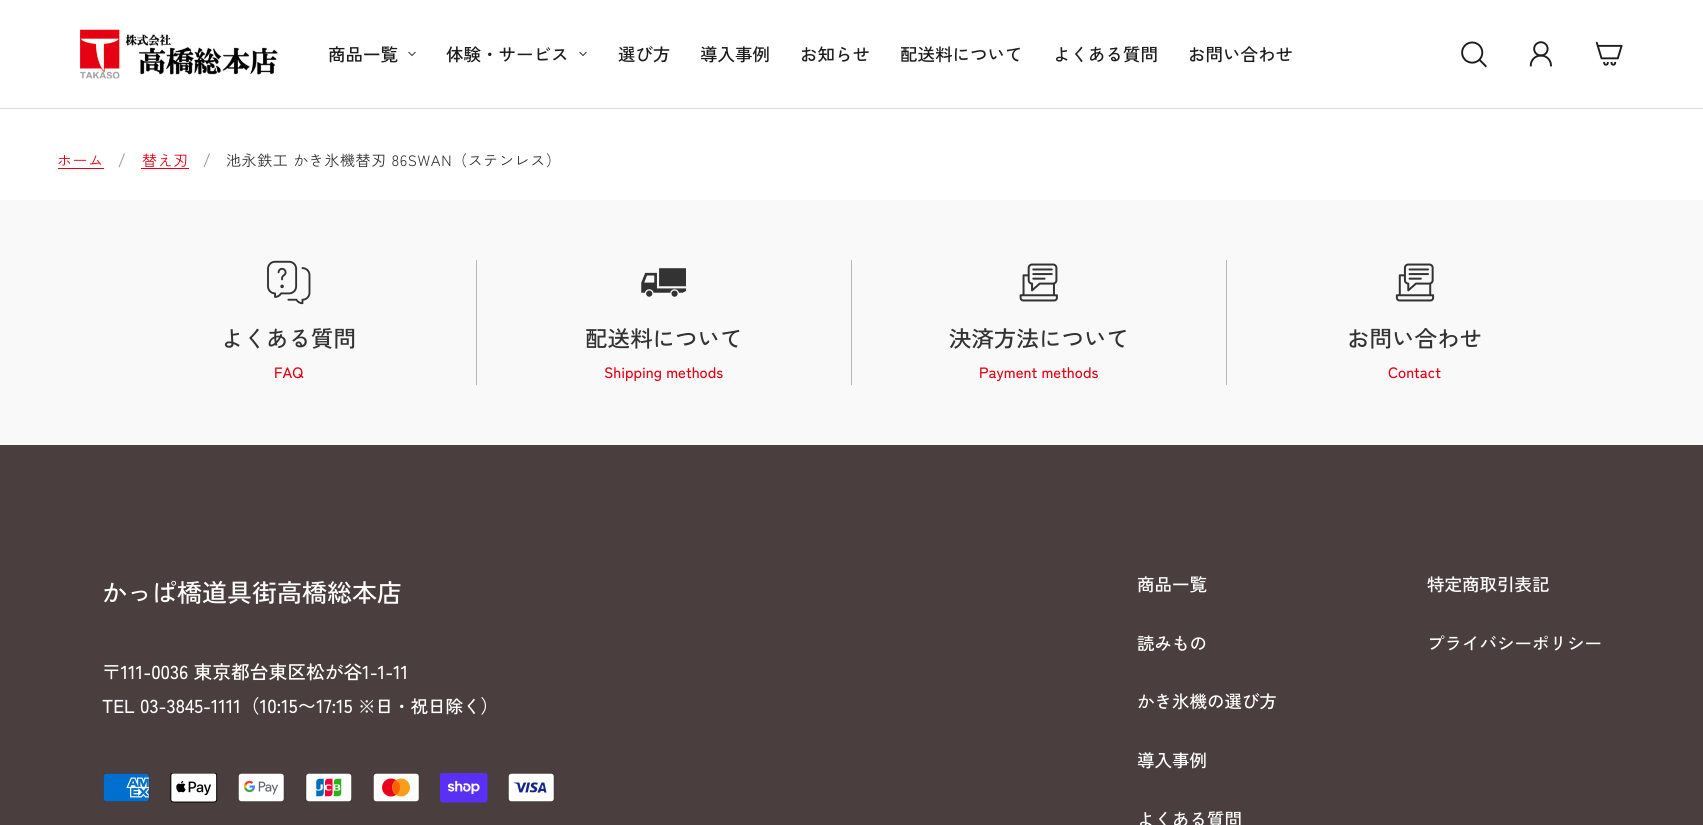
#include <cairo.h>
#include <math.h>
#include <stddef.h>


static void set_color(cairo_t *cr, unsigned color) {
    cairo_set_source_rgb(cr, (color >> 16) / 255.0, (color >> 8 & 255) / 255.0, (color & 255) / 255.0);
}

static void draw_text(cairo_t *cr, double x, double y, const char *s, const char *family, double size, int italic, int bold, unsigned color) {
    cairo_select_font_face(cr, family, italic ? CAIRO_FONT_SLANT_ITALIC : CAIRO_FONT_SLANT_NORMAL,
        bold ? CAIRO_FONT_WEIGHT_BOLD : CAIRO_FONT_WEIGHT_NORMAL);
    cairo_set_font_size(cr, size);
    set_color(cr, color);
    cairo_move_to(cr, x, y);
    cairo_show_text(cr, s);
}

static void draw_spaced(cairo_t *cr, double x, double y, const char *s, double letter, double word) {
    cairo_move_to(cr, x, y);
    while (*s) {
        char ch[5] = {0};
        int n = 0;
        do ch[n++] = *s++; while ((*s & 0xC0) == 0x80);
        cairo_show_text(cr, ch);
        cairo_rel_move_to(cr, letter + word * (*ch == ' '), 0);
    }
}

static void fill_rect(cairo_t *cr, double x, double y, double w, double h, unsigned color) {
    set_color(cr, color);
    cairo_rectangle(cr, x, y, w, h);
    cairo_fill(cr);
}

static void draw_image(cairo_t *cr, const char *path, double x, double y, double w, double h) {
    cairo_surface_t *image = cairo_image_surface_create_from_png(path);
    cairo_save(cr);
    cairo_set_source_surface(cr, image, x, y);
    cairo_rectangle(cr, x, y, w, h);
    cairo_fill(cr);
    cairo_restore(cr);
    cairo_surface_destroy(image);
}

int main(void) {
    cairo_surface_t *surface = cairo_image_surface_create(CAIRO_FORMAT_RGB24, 1703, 825);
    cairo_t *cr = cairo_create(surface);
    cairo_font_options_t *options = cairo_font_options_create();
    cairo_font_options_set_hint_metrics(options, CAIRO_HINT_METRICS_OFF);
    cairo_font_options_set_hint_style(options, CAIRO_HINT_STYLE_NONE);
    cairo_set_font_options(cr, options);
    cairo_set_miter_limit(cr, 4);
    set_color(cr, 0xFFFFFF);
    cairo_paint(cr);
    fill_rect(cr, 0, 108, 1703, 1, 0xDDDDDD);
    draw_image(cr, "assets/img1.png", 80, 29, 198, 50);
    draw_text(cr, 328, 61, "商品一覧", "Zen Kaku Gothic New Medium", 17.5, 0, 0, 0x1C1C1C);
    cairo_new_path(cr);
    cairo_move_to(cr, 408.5, 52);
    cairo_line_to(cr, 412, 55.5);
    cairo_line_to(cr, 415.5, 52);
    set_color(cr, 0x333333);
    cairo_set_line_width(cr, 1);
    cairo_stroke(cr);
    draw_text(cr, 446, 61, "体験・サービス", "Zen Kaku Gothic New Medium", 17.5, 0, 0, 0x1C1C1C);
    cairo_new_path(cr);
    cairo_move_to(cr, 579.5, 52);
    cairo_line_to(cr, 583, 55.5);
    cairo_line_to(cr, 586.5, 52);
    set_color(cr, 0x333333);
    cairo_stroke(cr);
    draw_text(cr, 618, 61, "選び方", "Zen Kaku Gothic New Medium", 17.5, 0, 0, 0x1C1C1C);
    draw_text(cr, 700, 61, "導入事例", "Zen Kaku Gothic New Medium", 17.5, 0, 0, 0x1C1C1C);
    draw_text(cr, 800, 61, "お知らせ", "Zen Kaku Gothic New Medium", 17.5, 0, 0, 0x1C1C1C);
    draw_text(cr, 900, 61, "配送料について", "Zen Kaku Gothic New Medium", 17.5, 0, 0, 0x1C1C1C);
    draw_text(cr, 1053, 61, "よくある質問", "Zen Kaku Gothic New Medium", 17.5, 0, 0, 0x1C1C1C);
    draw_text(cr, 1188, 61, "お問い合わせ", "Zen Kaku Gothic New Medium", 17.5, 0, 0, 0x1C1C1C);
    draw_image(cr, "assets/img2.png", 1461, 41, 26, 27);
    draw_image(cr, "assets/img3.png", 1529, 41, 23, 26);
    draw_image(cr, "assets/img4.png", 1595, 41, 28, 25);
    cairo_select_font_face(cr, "Zen Kaku Gothic New", CAIRO_FONT_SLANT_NORMAL, CAIRO_FONT_WEIGHT_NORMAL);
    cairo_set_font_size(cr, 15);
    set_color(cr, 0xE50113);
    draw_spaced(cr, 57, 166, "ホーム", 0.6, 0);
    fill_rect(cr, 58, 168, 46, 1, 0xE50113);
    cairo_select_font_face(cr, "BIZ UDPGothic", CAIRO_FONT_SLANT_NORMAL, CAIRO_FONT_WEIGHT_BOLD);
    set_color(cr, 0x999999);
    draw_spaced(cr, 118, 166, "/", 0.6, 0);
    cairo_select_font_face(cr, "Zen Kaku Gothic New", CAIRO_FONT_SLANT_NORMAL, CAIRO_FONT_WEIGHT_NORMAL);
    set_color(cr, 0xE50113);
    draw_spaced(cr, 142, 166, "替え刃", 0.6, 0);
    fill_rect(cr, 141, 168, 48, 1, 0xE50113);
    cairo_select_font_face(cr, "BIZ UDPGothic", CAIRO_FONT_SLANT_NORMAL, CAIRO_FONT_WEIGHT_BOLD);
    set_color(cr, 0x999999);
    draw_spaced(cr, 203, 166, "/", 0.6, 0);
    cairo_select_font_face(cr, "Zen Kaku Gothic New", CAIRO_FONT_SLANT_NORMAL, CAIRO_FONT_WEIGHT_NORMAL);
    set_color(cr, 0x333333);
    draw_spaced(cr, 226, 166, "池永鉄工 かき氷機替刃 86SWAN（ステンレス）", 0.6, 0);
    fill_rect(cr, 0, 200, 1703, 245, 0xF9F9F9);
    fill_rect(cr, 476, 260, 1, 125, 0xBDB4B5);
    draw_image(cr, "assets/img5.png", 267, 260, 44, 45);
    draw_text(cr, 221, 347, "よくある質問", "Zen Kaku Gothic New Medium", 22.5, 0, 0, 0x333333);
    draw_text(cr, 274, 378, "FAQ", "Zen Kaku Gothic New Medium", 15, 0, 0, 0xE50113);
    fill_rect(cr, 851, 260, 1, 125, 0xBDB4B5);
    draw_image(cr, "assets/img6.png", 641, 268, 45, 29);
    draw_text(cr, 585, 347, "配送料について", "Zen Kaku Gothic New Medium", 22.5, 0, 0, 0x333333);
    draw_text(cr, 604, 378, "Shipping methods", "Zen Kaku Gothic New Medium", 15, 0, 0, 0xE50113);
    fill_rect(cr, 1226, 260, 1, 125, 0xBDB4B5);
    draw_image(cr, "assets/img7.png", 1019, 263, 39, 39);
    draw_text(cr, 949, 347, "決済方法について", "Zen Kaku Gothic New Medium", 22.5, 0, 0, 0x333333);
    draw_text(cr, 979, 378, "Payment methods", "Zen Kaku Gothic New Medium", 15, 0, 0, 0xE50113);
    draw_image(cr, "assets/img8.png", 1395, 263, 40, 39);
    draw_text(cr, 1347, 347, "お問い合わせ", "Zen Kaku Gothic New Medium", 22.5, 0, 0, 0x333333);
    draw_text(cr, 1388, 378, "Contact", "Zen Kaku Gothic New Medium", 15, 0, 0, 0xE50113);
    fill_rect(cr, 0, 445, 1703, 380, 0x4A3E3F);
    draw_text(cr, 102, 602, "かっぱ橋道具街高橋総本店", "Zen Kaku Gothic New Medium", 25, 0, 0, 0xFFFFFF);
    draw_text(cr, 102, 679, "〒111-0036 東京都台東区松が谷1-1-11", "Zen Kaku Gothic New Medium", 18.75, 0, 0, 0xFFFFFF);
    draw_text(cr, 102, 713, "TEL 03-3845-1111（10:15〜17:15", "Zen Kaku Gothic New Medium", 18.75, 0, 0, 0xFFFFFF);
    draw_text(cr, 358, 713, "※日・祝日除く", "Zen Kaku Gothic New Medium", 17.5, 0, 0, 0xFFFFFF);
    draw_text(cr, 480, 713, "）", "Zen Kaku Gothic New Medium", 18.75, 0, 0, 0xFFFFFF);
    draw_image(cr, "assets/img9.png", 103, 773, 47, 29);
    draw_image(cr, "assets/img10.png", 170, 773, 48, 30);
    draw_image(cr, "assets/img11.png", 238, 773, 47, 29);
    draw_image(cr, "assets/img12.png", 305, 773, 47, 29);
    draw_image(cr, "assets/img13.png", 373, 773, 47, 29);
    draw_image(cr, "assets/img14.png", 440, 773, 48, 30);
    draw_image(cr, "assets/img15.png", 508, 773, 47, 29);
    draw_text(cr, 1137, 591, "商品一覧", "Zen Kaku Gothic New Medium", 17.5, 0, 0, 0xFFFFFF);
    draw_text(cr, 1137, 650, "読みもの", "Zen Kaku Gothic New Medium", 17.5, 0, 0, 0xFFFFFF);
    draw_text(cr, 1137, 708, "かき氷機の選び方", "Zen Kaku Gothic New Medium", 17.5, 0, 0, 0xFFFFFF);
    draw_text(cr, 1137, 767, "導入事例", "Zen Kaku Gothic New Medium", 17.5, 0, 0, 0xFFFFFF);
    draw_text(cr, 1137, 826, "よくある質問", "Zen Kaku Gothic New Medium", 17.5, 0, 0, 0xFFFFFF);
    draw_text(cr, 1427, 591, "特定商取引表記", "Zen Kaku Gothic New Medium", 17.5, 0, 0, 0xFFFFFF);
    draw_text(cr, 1427, 650, "プライバシーポリシー", "Zen Kaku Gothic New Medium", 17.5, 0, 0, 0xFFFFFF);
    cairo_surface_write_to_png(surface, "output.png");
    cairo_font_options_destroy(options);
    cairo_destroy(cr);
    cairo_surface_destroy(surface);
    return 0;
}
